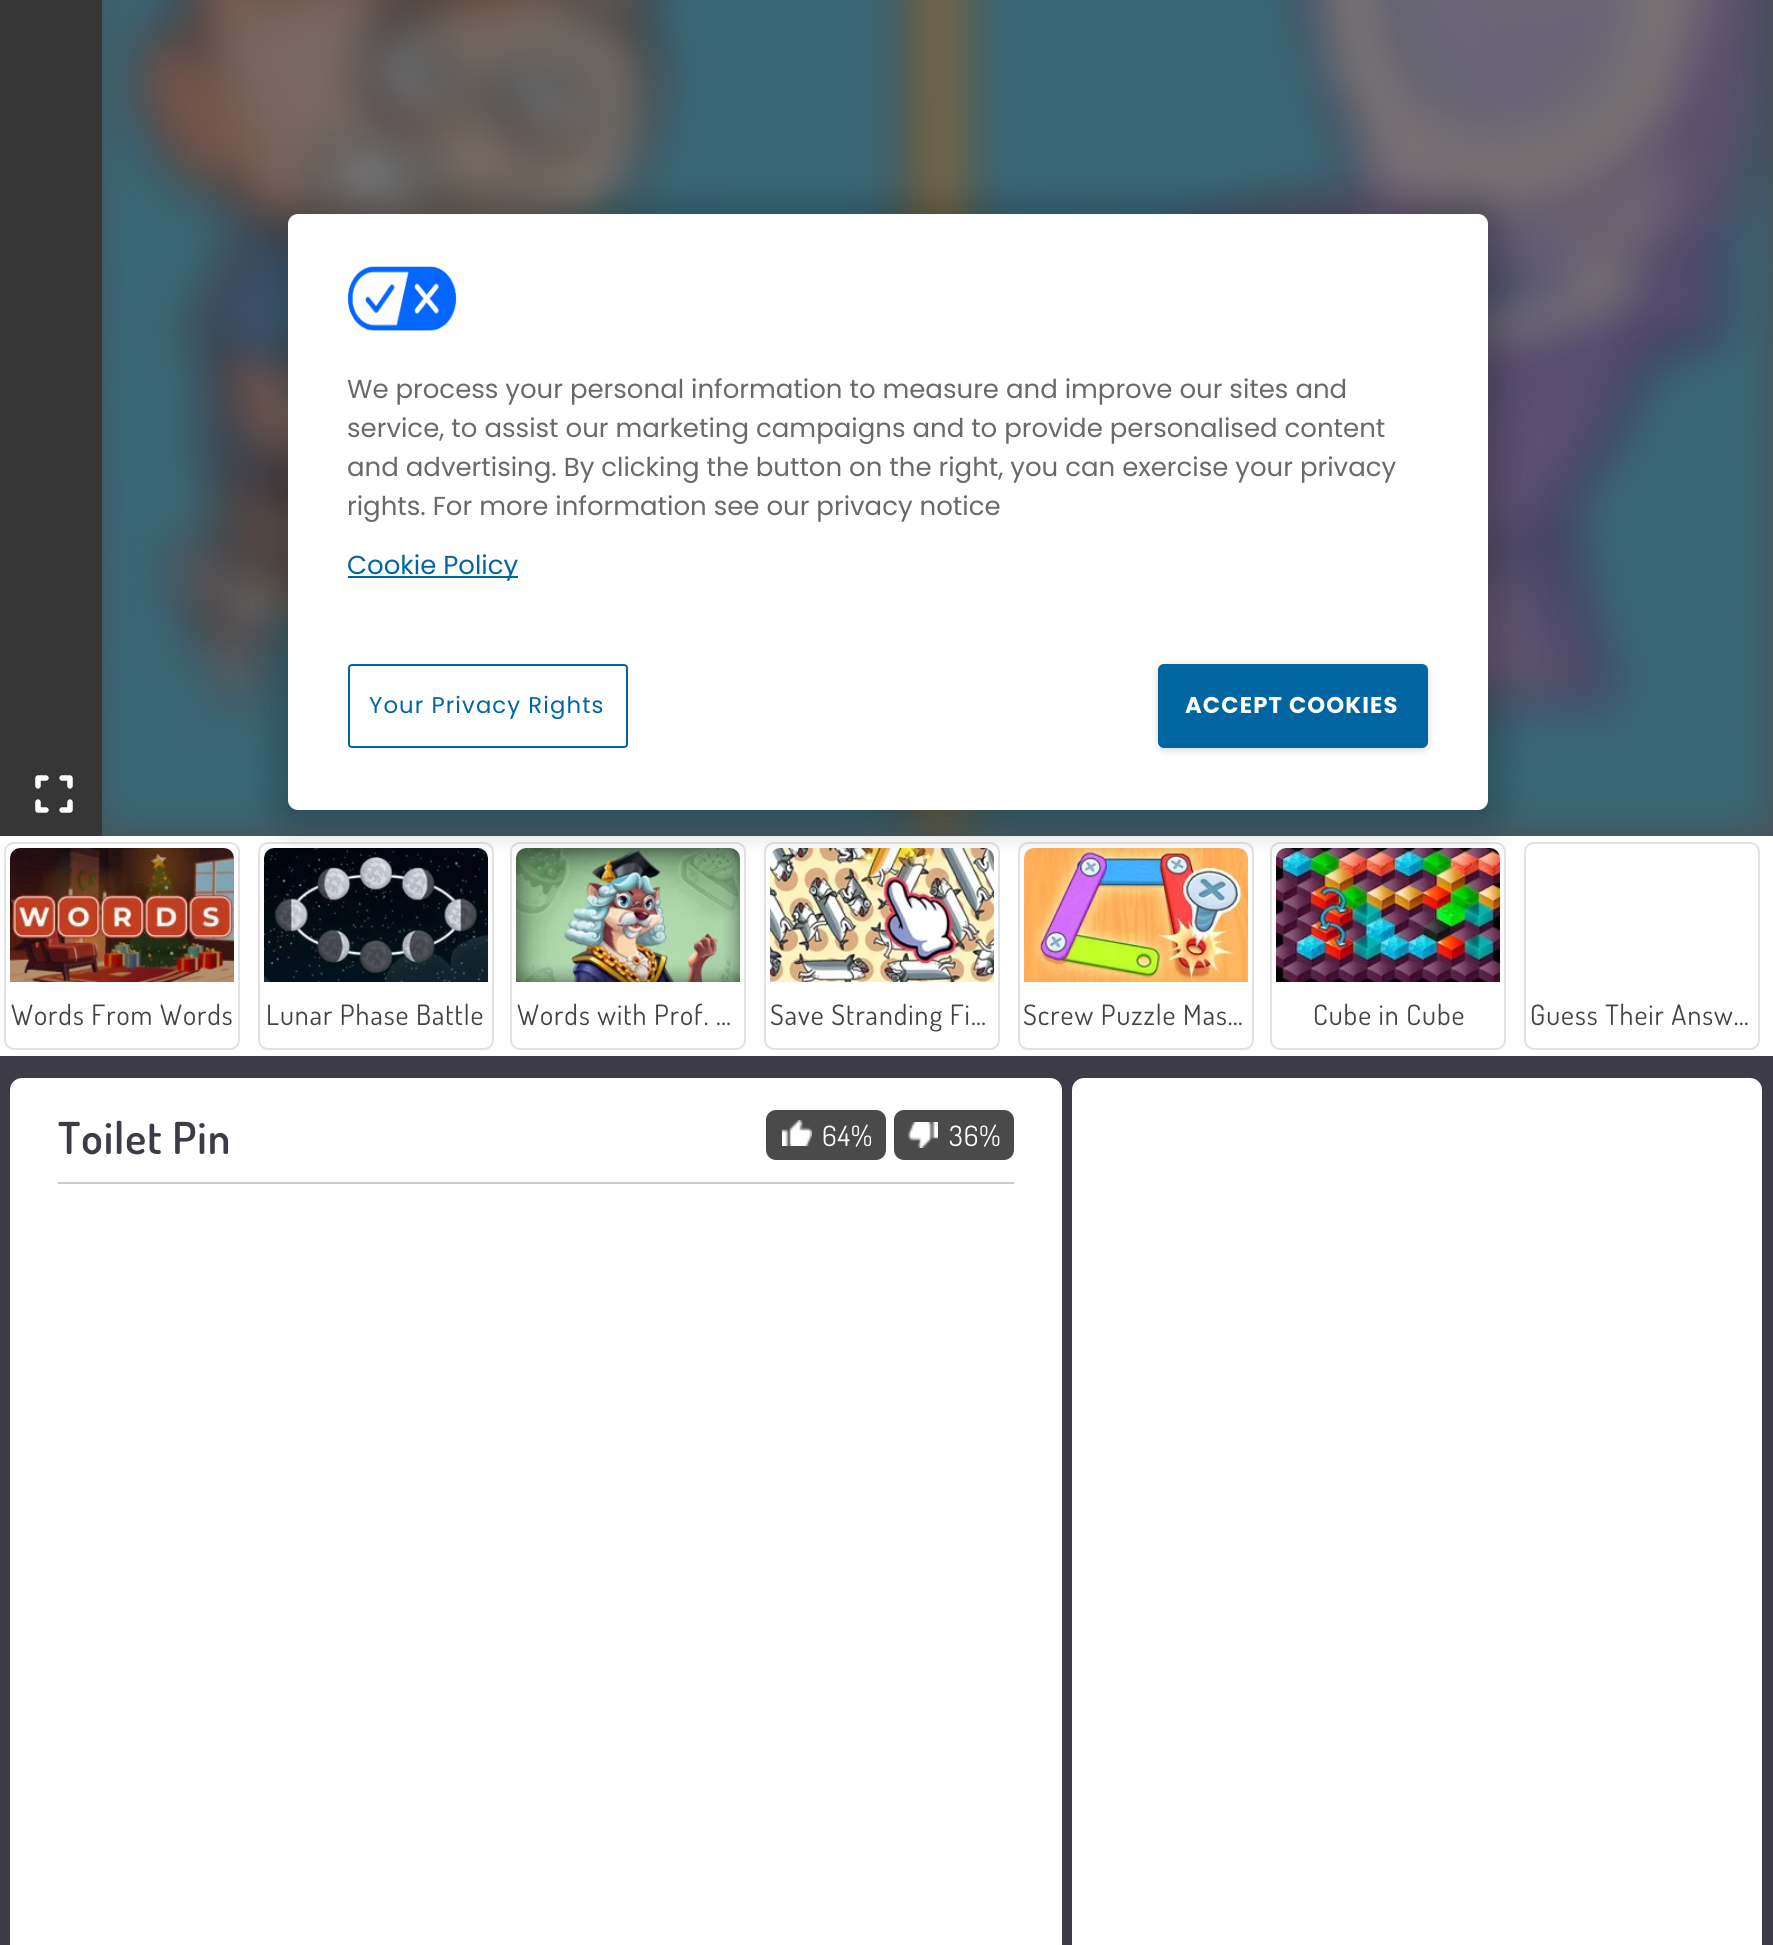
#include <cairo.h>
#include <math.h>
#include <stddef.h>


static void set_color(cairo_t *cr, unsigned color) {
    cairo_set_source_rgb(cr, (color >> 16) / 255.0, (color >> 8 & 255) / 255.0, (color & 255) / 255.0);
}

static void draw_text(cairo_t *cr, double x, double y, const char *s, const char *family, double size, int italic, int bold, unsigned color) {
    cairo_select_font_face(cr, family, italic ? CAIRO_FONT_SLANT_ITALIC : CAIRO_FONT_SLANT_NORMAL,
        bold ? CAIRO_FONT_WEIGHT_BOLD : CAIRO_FONT_WEIGHT_NORMAL);
    cairo_set_font_size(cr, size);
    set_color(cr, color);
    cairo_move_to(cr, x, y);
    cairo_show_text(cr, s);
}

static void draw_spaced(cairo_t *cr, double x, double y, const char *s, double letter, double word) {
    cairo_move_to(cr, x, y);
    while (*s) {
        char ch[5] = {0};
        int n = 0;
        do ch[n++] = *s++; while ((*s & 0xC0) == 0x80);
        cairo_show_text(cr, ch);
        cairo_rel_move_to(cr, letter + word * (*ch == ' '), 0);
    }
}

static void fill_rect(cairo_t *cr, double x, double y, double w, double h, unsigned color) {
    set_color(cr, color);
    cairo_rectangle(cr, x, y, w, h);
    cairo_fill(cr);
}

static void rounded_rect(cairo_t *cr, double x, double y, double w, double h, double r) {
    cairo_new_sub_path(cr);
    cairo_arc(cr, x + w - r, y + h - r, r, 0, M_PI / 2);
    cairo_arc(cr, x + r, y + h - r, r, M_PI / 2, M_PI);
    cairo_arc(cr, x + r, y + r, r, M_PI, 1.5 * M_PI);
    cairo_arc(cr, x + w - r, y + r, r, 1.5 * M_PI, 2 * M_PI);
    cairo_close_path(cr);
}

static void draw_shadow(cairo_t *cr, double x, double y, double w, double h, double r, double blur, double alpha) {
    cairo_push_group_with_content(cr, CAIRO_CONTENT_ALPHA);
    cairo_set_operator(cr, CAIRO_OPERATOR_SOURCE);
    for (int i = 15; i >= -15 && fmin(w, h) + blur * i / 3 > 0; i -= 2) {
        double e = blur * i / 6;
        cairo_set_source_rgba(cr, 0, 0, 0, alpha * erfc((i - 1) / 8.5) / 2);
        rounded_rect(cr, x - e, y - e, w + 2 * e, h + 2 * e, fmax(0, fmin(r + e + blur * .6, fmin(w, h) / 2 + e)));
        cairo_fill(cr);
    }
    cairo_pattern_t *soft = cairo_pop_group(cr);
    cairo_mask(cr, soft);
    cairo_pattern_destroy(soft);
}

static void draw_image(cairo_t *cr, const char *path, double x, double y, double w, double h) {
    cairo_surface_t *image = cairo_image_surface_create_from_png(path);
    cairo_save(cr);
    cairo_set_source_surface(cr, image, x, y);
    cairo_rectangle(cr, x, y, w, h);
    cairo_fill(cr);
    cairo_restore(cr);
    cairo_surface_destroy(image);
}

int main(void) {
    cairo_surface_t *surface = cairo_image_surface_create(CAIRO_FORMAT_RGB24, 1773, 1945);
    cairo_t *cr = cairo_create(surface);
    cairo_font_options_t *options = cairo_font_options_create();
    cairo_font_options_set_hint_metrics(options, CAIRO_HINT_METRICS_OFF);
    cairo_font_options_set_hint_style(options, CAIRO_HINT_STYLE_NONE);
    cairo_set_font_options(cr, options);
    cairo_set_miter_limit(cr, 4);
    set_color(cr, 0x3C3B47);
    cairo_paint(cr);
    fill_rect(cr, 0, 836, 1773, 220, 0xFFFFFF);
    fill_rect(cr, 102, 0, 1671, 836, 0x4C4C4C);
    draw_image(cr, "assets/img3.png", 102, 0, 1671, 836);
    rounded_rect(cr, 5, 843, 234, 206, 9);
    set_color(cr, 0xE2E2E2);
    cairo_stroke(cr);
    draw_image(cr, "assets/img4.png", 10, 848, 224, 134);
    rounded_rect(cr, 259, 843, 234, 206, 9);
    cairo_stroke(cr);
    draw_image(cr, "assets/img5.png", 264, 848, 224, 134);
    rounded_rect(cr, 511, 843, 234, 206, 9);
    cairo_stroke(cr);
    draw_image(cr, "assets/img6.png", 516, 848, 224, 134);
    rounded_rect(cr, 765, 843, 234, 206, 9);
    cairo_stroke(cr);
    draw_image(cr, "assets/img7.png", 770, 848, 224, 134);
    rounded_rect(cr, 1019, 843, 234, 206, 9);
    cairo_stroke(cr);
    draw_image(cr, "assets/img8.png", 1024, 848, 224, 134);
    rounded_rect(cr, 1271, 843, 234, 206, 9);
    cairo_stroke(cr);
    draw_image(cr, "assets/img9.png", 1276, 848, 224, 134);
    rounded_rect(cr, 1525, 843, 234, 206, 9);
    cairo_stroke(cr);
    set_color(cr, 0x000000);
    draw_shadow(cr, 272, 202, 1232, 628, 26, 15, 0.2);
    set_color(cr, 0xFFFFFF);
    rounded_rect(cr, 288, 214, 1200, 596, 10);
    cairo_fill(cr);
    draw_image(cr, "assets/img1.png", 347, 266, 110, 65);
    draw_text(cr, 347, 398, "We process your personal information to measure and improve our sites and", "Poppins", 26, 0, 0, 0x696969);
    draw_text(cr, 347, 437, "service, to assist our marketing campaigns and to provide personalised content", "Poppins", 26, 0, 0, 0x696969);
    draw_text(cr, 347, 476, "and advertising. By clicking the button on the right, you can exercise your privacy", "Poppins", 26, 0, 0, 0x696969);
    draw_text(cr, 347, 515, "rights. For more information see our privacy notice", "Poppins", 26, 0, 0, 0x696969);
    fill_rect(cr, 348, 576, 170, 2, 0x0065A0);
    draw_text(cr, 347, 574, "Cookie Policy", "Poppins", 26, 0, 0, 0x0065A0);
    rounded_rect(cr, 349, 665, 278, 82, 3);
    cairo_stroke(cr);
    cairo_set_font_size(cr, 22.75);
    draw_spaced(cr, 369, 713, "Your Privacy Rights", 1.1, 0);
    set_color(cr, 0x000000);
    draw_shadow(cr, 1158, 666, 270, 84, 6, 4, 0.16);
    set_color(cr, 0x0065A0);
    rounded_rect(cr, 1159, 665, 268, 82, 5);
    cairo_fill_preserve(cr);
    cairo_stroke(cr);
    cairo_select_font_face(cr, "Poppins", CAIRO_FONT_SLANT_NORMAL, CAIRO_FONT_WEIGHT_BOLD);
    set_color(cr, 0xFFFFFF);
    draw_spaced(cr, 1185, 713, "ACCEPT COOKIES", 1.1, 0);
    fill_rect(cr, 0, 0, 102, 836, 0x363636);
    draw_image(cr, "assets/img2.png", 35, 775, 38, 38);
    cairo_select_font_face(cr, "Dosis", CAIRO_FONT_SLANT_NORMAL, CAIRO_FONT_WEIGHT_NORMAL);
    cairo_set_font_size(cr, 28);
    set_color(cr, 0x434343);
    draw_spaced(cr, 11, 1025, "Words From Words", 1, 0);
    draw_spaced(cr, 266, 1025, "Lunar Phase Battle", 1, 0);
    draw_spaced(cr, 517, 1025, "Words with Prof. …", 1, 0);
    draw_spaced(cr, 770, 1025, "Save Stranding Fi…", 1, 0);
    draw_spaced(cr, 1023, 1025, "Screw Puzzle Mas…", 1, 0);
    draw_spaced(cr, 1313, 1025, "Cube in Cube", 1, 0);
    draw_spaced(cr, 1530, 1025, "Guess Their Answ…", 1, 0);
    set_color(cr, 0xFFFFFF);
    rounded_rect(cr, 10, 1078, 1052, 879, 12);
    cairo_fill(cr);
    fill_rect(cr, 58, 1182, 956, 2, 0xCCCCCC);
    cairo_select_font_face(cr, "Dosis SemiBold", CAIRO_FONT_SLANT_NORMAL, CAIRO_FONT_WEIGHT_NORMAL);
    cairo_set_font_size(cr, 44);
    set_color(cr, 0x3C3B47);
    draw_spaced(cr, 58, 1154, "Toilet Pin", 1, 0);
    set_color(cr, 0x4A4A4A);
    rounded_rect(cr, 766, 1110, 120, 50, 10);
    cairo_fill(cr);
    draw_image(cr, "assets/img10.png", 782, 1120, 30, 26);
    cairo_select_font_face(cr, "Dosis", CAIRO_FONT_SLANT_NORMAL, CAIRO_FONT_WEIGHT_NORMAL);
    cairo_set_font_size(cr, 28);
    set_color(cr, 0xFFFFFF);
    draw_spaced(cr, 822, 1146, "64%", 1, 0);
    set_color(cr, 0x4A4A4A);
    rounded_rect(cr, 894, 1110, 120, 50, 10);
    cairo_fill(cr);
    draw_image(cr, "assets/img11.png", 908, 1122, 30, 26);
    set_color(cr, 0xFFFFFF);
    draw_spaced(cr, 949, 1146, "36%", 1, 0);
    rounded_rect(cr, 1072, 1078, 690, 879, 12);
    cairo_fill(cr);
    cairo_surface_write_to_png(surface, "output.png");
    cairo_font_options_destroy(options);
    cairo_destroy(cr);
    cairo_surface_destroy(surface);
    return 0;
}
